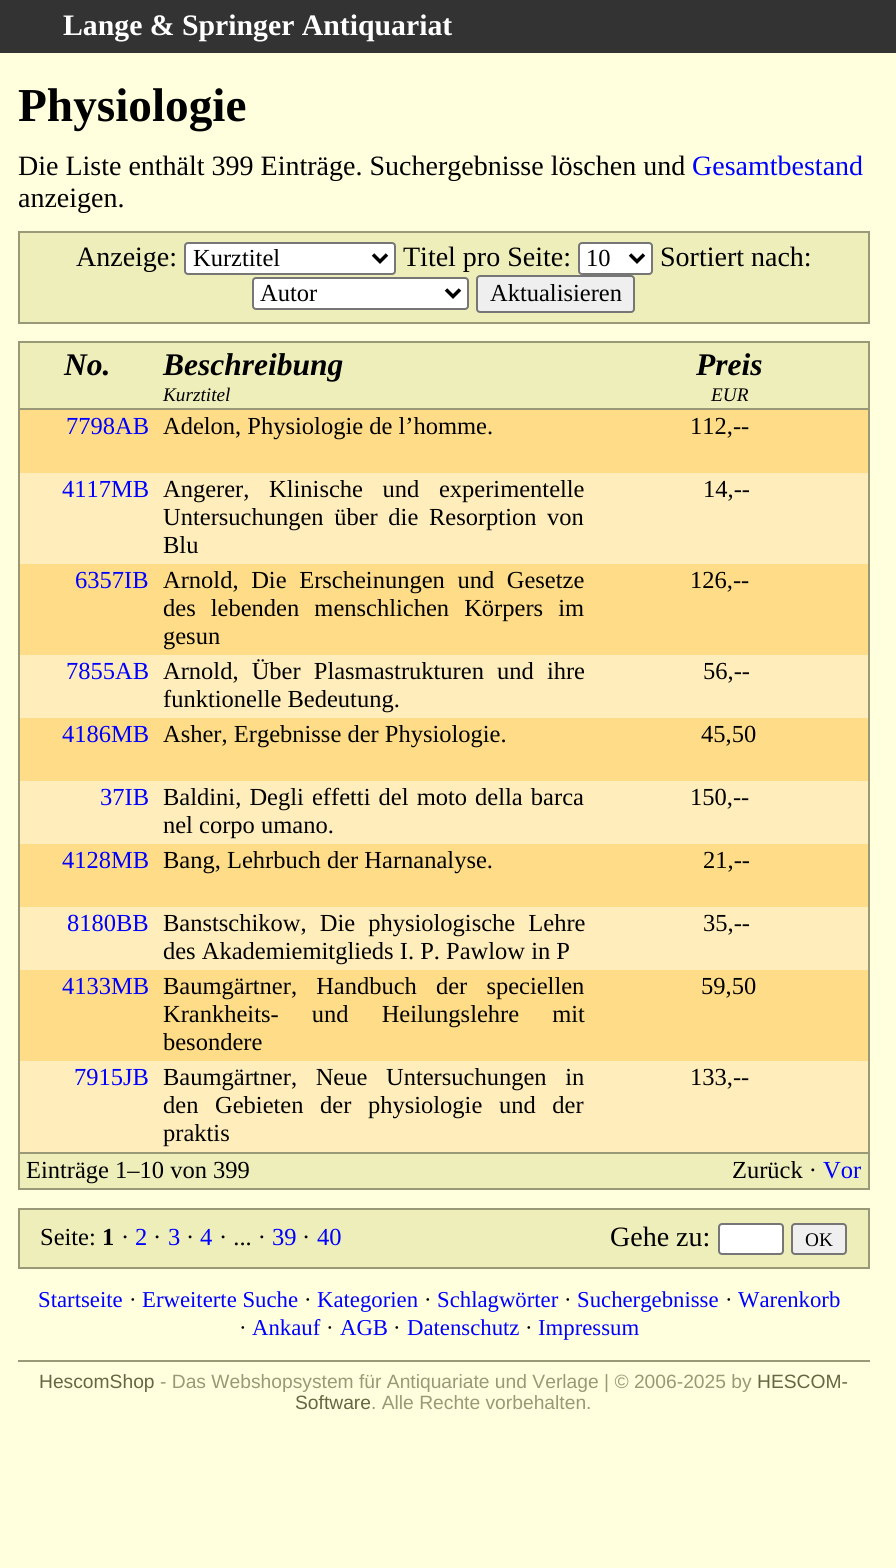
#include <cairo.h>
#include <math.h>
#include <stddef.h>


static void set_color(cairo_t *cr, unsigned color) {
    cairo_set_source_rgb(cr, (color >> 16) / 255.0, (color >> 8 & 255) / 255.0, (color & 255) / 255.0);
}

static void draw_text(cairo_t *cr, double x, double y, const char *s, const char *family, double size, int italic, int bold, unsigned color) {
    cairo_select_font_face(cr, family, italic ? CAIRO_FONT_SLANT_ITALIC : CAIRO_FONT_SLANT_NORMAL,
        bold ? CAIRO_FONT_WEIGHT_BOLD : CAIRO_FONT_WEIGHT_NORMAL);
    cairo_set_font_size(cr, size);
    set_color(cr, color);
    cairo_move_to(cr, x, y);
    cairo_show_text(cr, s);
}

static void draw_spaced(cairo_t *cr, double x, double y, const char *s, double letter, double word) {
    cairo_move_to(cr, x, y);
    while (*s) {
        char ch[5] = {0};
        int n = 0;
        do ch[n++] = *s++; while ((*s & 0xC0) == 0x80);
        cairo_show_text(cr, ch);
        cairo_rel_move_to(cr, letter + word * (*ch == ' '), 0);
    }
}

static void fill_rect(cairo_t *cr, double x, double y, double w, double h, unsigned color) {
    set_color(cr, color);
    cairo_rectangle(cr, x, y, w, h);
    cairo_fill(cr);
}

static void rounded_rect(cairo_t *cr, double x, double y, double w, double h, double r) {
    cairo_new_sub_path(cr);
    cairo_arc(cr, x + w - r, y + h - r, r, 0, M_PI / 2);
    cairo_arc(cr, x + r, y + h - r, r, M_PI / 2, M_PI);
    cairo_arc(cr, x + r, y + r, r, M_PI, 1.5 * M_PI);
    cairo_arc(cr, x + w - r, y + r, r, 1.5 * M_PI, 2 * M_PI);
    cairo_close_path(cr);
}

int main(void) {
    cairo_surface_t *surface = cairo_image_surface_create(CAIRO_FORMAT_RGB24, 896, 1568);
    cairo_t *cr = cairo_create(surface);
    cairo_font_options_t *options = cairo_font_options_create();
    cairo_font_options_set_hint_metrics(options, CAIRO_HINT_METRICS_OFF);
    cairo_font_options_set_hint_style(options, CAIRO_HINT_STYLE_NONE);
    cairo_set_font_options(cr, options);
    cairo_set_miter_limit(cr, 4);
    set_color(cr, 0xFFFFDD);
    cairo_paint(cr);
    fill_rect(cr, 0, 0, 896, 53, 0x333333);
    draw_text(cr, 63, 35, "Lange & Springer Antiquariat", "Liberation Serif", 29.75, 0, 1, 0xFFFFFF);
    draw_text(cr, 18, 121, "Physiologie", "Liberation Serif", 47.25, 0, 1, 0x000000);
    draw_text(cr, 18, 175, "Die Liste enthält 399 Einträge. Suchergebnisse löschen und", "Liberation Serif", 28, 0, 0, 0x000000);
    draw_text(cr, 692, 175, "Gesamtbestand", "Liberation Serif", 28, 0, 0, 0x0000FF);
    draw_text(cr, 18, 207, "anzeigen.", "Liberation Serif", 28, 0, 0, 0x000000);
    set_color(cr, 0xEEEEBB);
    cairo_rectangle(cr, 19, 232, 850, 91);
    cairo_fill_preserve(cr);
    set_color(cr, 0x999977);
    cairo_stroke(cr);
    draw_text(cr, 660, 266, "Sortiert nach:", "Liberation Serif", 28, 0, 0, 0x000000);
    set_color(cr, 0xFFFFFF);
    rounded_rect(cr, 253, 278, 215, 31, 3);
    cairo_fill_preserve(cr);
    set_color(cr, 0x767676);
    cairo_stroke(cr);
    cairo_new_path(cr);
    cairo_move_to(cr, 446, 289.5);
    cairo_line_to(cr, 453, 296.5);
    cairo_line_to(cr, 460, 289.5);
    set_color(cr, 0x000000);
    cairo_set_line_width(cr, 3.5);
    cairo_stroke(cr);
    draw_text(cr, 260, 301, "Autor", "Liberation Serif", 24.5, 0, 0, 0x000000);
    draw_text(cr, 76, 266, "Anzeige:", "Liberation Serif", 28, 0, 0, 0x000000);
    set_color(cr, 0xFFFFFF);
    rounded_rect(cr, 185, 243, 210, 31, 3);
    cairo_fill_preserve(cr);
    set_color(cr, 0x767676);
    cairo_set_line_width(cr, 2);
    cairo_stroke(cr);
    cairo_new_path(cr);
    cairo_move_to(cr, 373, 254.5);
    cairo_line_to(cr, 380, 261.5);
    cairo_line_to(cr, 387, 254.5);
    set_color(cr, 0x000000);
    cairo_set_line_width(cr, 3.5);
    cairo_stroke(cr);
    draw_text(cr, 193, 266, "Kurztitel", "Liberation Serif", 24.5, 0, 0, 0x000000);
    draw_text(cr, 403, 266, "Titel pro Seite:", "Liberation Serif", 28, 0, 0, 0x000000);
    set_color(cr, 0xFFFFFF);
    rounded_rect(cr, 579, 243, 73, 31, 3);
    cairo_fill_preserve(cr);
    set_color(cr, 0x767676);
    cairo_set_line_width(cr, 2);
    cairo_stroke(cr);
    cairo_new_path(cr);
    cairo_move_to(cr, 630, 254.5);
    cairo_line_to(cr, 637, 261.5);
    cairo_line_to(cr, 644, 254.5);
    set_color(cr, 0x000000);
    cairo_set_line_width(cr, 3.5);
    cairo_stroke(cr);
    draw_text(cr, 586, 266, "10", "Liberation Serif", 24.5, 0, 0, 0x000000);
    set_color(cr, 0xEFEFEF);
    rounded_rect(cr, 477, 276, 157, 36, 3);
    cairo_fill_preserve(cr);
    set_color(cr, 0x767676);
    cairo_set_line_width(cr, 2);
    cairo_stroke(cr);
    draw_text(cr, 490, 301, "Aktualisieren", "Liberation Serif", 24.5, 0, 0, 0x000000);
    fill_rect(cr, 20, 343, 848, 845, 0xEEEEBB);
    fill_rect(cr, 18, 341, 852, 2, 0x999977);
    fill_rect(cr, 868, 341, 2, 849, 0x999977);
    fill_rect(cr, 18, 1188, 852, 2, 0x999977);
    fill_rect(cr, 18, 341, 2, 849, 0x999977);
    draw_text(cr, 64, 375, "No.", "Liberation Serif", 31.5, 1, 1, 0x000000);
    draw_text(cr, 163, 375, "Beschreibung", "Liberation Serif", 31.5, 1, 1, 0x000000);
    draw_text(cr, 163, 401, "Kurztitel", "Liberation Serif", 19.25, 1, 0, 0x000000);
    fill_rect(cr, 18, 408, 852, 2, 0x999977);
    draw_text(cr, 696, 375, "Preis", "Liberation Serif", 31.5, 1, 1, 0x000000);
    draw_text(cr, 711, 401, "EUR", "Liberation Serif", 19.25, 1, 0, 0x000000);
    fill_rect(cr, 20, 410, 848, 63, 0xFFDD88);
    draw_text(cr, 66, 434, "7798AB", "Liberation Serif", 24.5, 0, 0, 0x0000FF);
    draw_text(cr, 163, 434, "Adelon, Physiologie de l’homme.", "Liberation Serif", 24.5, 0, 0, 0x000000);
    draw_text(cr, 690, 434, "112,--", "Liberation Serif", 24.5, 0, 0, 0x000000);
    fill_rect(cr, 20, 473, 848, 91, 0xFFEEBB);
    draw_text(cr, 62, 497, "4117MB", "Liberation Serif", 24.5, 0, 0, 0x0000FF);
    set_color(cr, 0x000000);
    draw_spaced(cr, 163, 497, "Angerer, Klinische und experimentelle", 0, 13.5);
    draw_spaced(cr, 163, 525, "Untersuchungen über die Resorption von", 0, 4.5);
    draw_text(cr, 163, 553, "Blu", "Liberation Serif", 24.5, 0, 0, 0x000000);
    draw_text(cr, 703, 497, "14,--", "Liberation Serif", 24.5, 0, 0, 0x000000);
    fill_rect(cr, 20, 564, 848, 91, 0xFFDD88);
    draw_text(cr, 75, 588, "6357IB", "Liberation Serif", 24.5, 0, 0, 0x0000FF);
    set_color(cr, 0x000000);
    draw_spaced(cr, 163, 588, "Arnold, Die Erscheinungen und Gesetze", 0, 6.5);
    draw_spaced(cr, 163, 616, "des lebenden menschlichen Körpers im", 0, 9);
    draw_text(cr, 163, 644, "gesun", "Liberation Serif", 24.5, 0, 0, 0x000000);
    draw_text(cr, 690, 588, "126,--", "Liberation Serif", 24.5, 0, 0, 0x000000);
    fill_rect(cr, 20, 655, 848, 63, 0xFFEEBB);
    draw_text(cr, 66, 679, "7855AB", "Liberation Serif", 24.5, 0, 0, 0x0000FF);
    set_color(cr, 0x000000);
    draw_spaced(cr, 163, 679, "Arnold, Über Plasmastrukturen und ihre", 0, 7);
    draw_text(cr, 163, 707, "funktionelle Bedeutung.", "Liberation Serif", 24.5, 0, 0, 0x000000);
    draw_text(cr, 703, 679, "56,--", "Liberation Serif", 24.5, 0, 0, 0x000000);
    fill_rect(cr, 20, 718, 848, 63, 0xFFDD88);
    draw_text(cr, 62, 742, "4186MB", "Liberation Serif", 24.5, 0, 0, 0x0000FF);
    draw_text(cr, 163, 742, "Asher, Ergebnisse der Physiologie.", "Liberation Serif", 24.5, 0, 0, 0x000000);
    draw_text(cr, 701, 742, "45,50", "Liberation Serif", 24.5, 0, 0, 0x000000);
    fill_rect(cr, 20, 781, 848, 63, 0xFFEEBB);
    draw_text(cr, 100, 805, "37IB", "Liberation Serif", 24.5, 0, 0, 0x0000FF);
    set_color(cr, 0x000000);
    draw_spaced(cr, 163, 805, "Baldini, Degli effetti del moto della barca", 0, 2);
    draw_text(cr, 163, 833, "nel corpo umano.", "Liberation Serif", 24.5, 0, 0, 0x000000);
    draw_text(cr, 690, 805, "150,--", "Liberation Serif", 24.5, 0, 0, 0x000000);
    fill_rect(cr, 20, 844, 848, 63, 0xFFDD88);
    draw_text(cr, 62, 868, "4128MB", "Liberation Serif", 24.5, 0, 0, 0x0000FF);
    draw_text(cr, 163, 868, "Bang, Lehrbuch der Harnanalyse.", "Liberation Serif", 24.5, 0, 0, 0x000000);
    draw_text(cr, 703, 868, "21,--", "Liberation Serif", 24.5, 0, 0, 0x000000);
    fill_rect(cr, 20, 907, 848, 63, 0xFFEEBB);
    draw_text(cr, 67, 931, "8180BB", "Liberation Serif", 24.5, 0, 0, 0x0000FF);
    set_color(cr, 0x000000);
    draw_spaced(cr, 163, 931, "Banstschikow, Die physiologische Lehre", 0, 7);
    draw_text(cr, 163, 959, "des Akademiemitglieds I. P. Pawlow in P", "Liberation Serif", 24.5, 0, 0, 0x000000);
    draw_text(cr, 703, 931, "35,--", "Liberation Serif", 24.5, 0, 0, 0x000000);
    fill_rect(cr, 20, 970, 848, 91, 0xFFDD88);
    draw_text(cr, 62, 994, "4133MB", "Liberation Serif", 24.5, 0, 0, 0x0000FF);
    set_color(cr, 0x000000);
    draw_spaced(cr, 163, 994, "Baumgärtner, Handbuch der speciellen", 0, 13);
    draw_spaced(cr, 163, 1022, "Krankheits- und Heilungslehre mit", 0, 27);
    draw_text(cr, 163, 1050, "besondere", "Liberation Serif", 24.5, 0, 0, 0x000000);
    draw_text(cr, 701, 994, "59,50", "Liberation Serif", 24.5, 0, 0, 0x000000);
    fill_rect(cr, 20, 1061, 848, 91, 0xFFEEBB);
    draw_text(cr, 74, 1085, "7915JB", "Liberation Serif", 24.5, 0, 0, 0x0000FF);
    set_color(cr, 0x000000);
    draw_spaced(cr, 163, 1085, "Baumgärtner, Neue Untersuchungen in", 0, 12.5);
    draw_spaced(cr, 163, 1113, "den Gebieten der physiologie und der", 0, 10.5);
    draw_text(cr, 163, 1141, "praktis", "Liberation Serif", 24.5, 0, 0, 0x000000);
    draw_text(cr, 690, 1085, "133,--", "Liberation Serif", 24.5, 0, 0, 0x000000);
    fill_rect(cr, 18, 1152, 852, 2, 0x999977);
    draw_text(cr, 26, 1178, "Einträge 1–10 von 399", "Liberation Serif", 24.5, 0, 0, 0x000000);
    draw_text(cr, 732, 1178, "Zurück ·", "Liberation Serif", 24.5, 0, 0, 0x000000);
    draw_text(cr, 823, 1178, "Vor", "Liberation Serif", 24.5, 0, 0, 0x0000FF);
    set_color(cr, 0xEEEEBB);
    cairo_rectangle(cr, 19, 1209, 850, 59);
    cairo_fill_preserve(cr);
    set_color(cr, 0x999977);
    cairo_stroke(cr);
    draw_text(cr, 40, 1245, "Seite:", "Liberation Serif", 24.5, 0, 0, 0x000000);
    draw_text(cr, 102, 1245, "1", "Liberation Serif", 24.5, 0, 1, 0x000000);
    draw_text(cr, 121, 1245, "·", "Liberation Serif", 24.5, 0, 0, 0x000000);
    draw_text(cr, 135, 1245, "2", "Liberation Serif", 24.5, 0, 0, 0x0000FF);
    draw_text(cr, 153, 1245, "·", "Liberation Serif", 24.5, 0, 0, 0x000000);
    draw_text(cr, 168, 1245, "3", "Liberation Serif", 24.5, 0, 0, 0x0000FF);
    draw_text(cr, 186, 1245, "·", "Liberation Serif", 24.5, 0, 0, 0x000000);
    draw_text(cr, 200, 1245, "4", "Liberation Serif", 24.5, 0, 0, 0x0000FF);
    draw_text(cr, 219, 1245, "· ... ·", "Liberation Serif", 24.5, 0, 0, 0x000000);
    draw_text(cr, 272, 1245, "39", "Liberation Serif", 24.5, 0, 0, 0x0000FF);
    draw_text(cr, 302, 1245, "·", "Liberation Serif", 24.5, 0, 0, 0x000000);
    draw_text(cr, 317, 1245, "40", "Liberation Serif", 24.5, 0, 0, 0x0000FF);
    draw_text(cr, 610, 1246, "Gehe zu:", "Liberation Serif", 28, 0, 0, 0x000000);
    set_color(cr, 0xFFFFFF);
    rounded_rect(cr, 719, 1224, 64, 30, 3);
    cairo_fill_preserve(cr);
    set_color(cr, 0x767676);
    cairo_stroke(cr);
    set_color(cr, 0xEFEFEF);
    rounded_rect(cr, 792, 1224, 54, 30, 3);
    cairo_fill_preserve(cr);
    set_color(cr, 0x767676);
    cairo_stroke(cr);
    draw_text(cr, 805, 1246, "OK", "Liberation Serif", 19.25, 0, 0, 0x000000);
    draw_text(cr, 38, 1307, "Startseite", "Liberation Serif", 22.75, 0, 0, 0x0000FF);
    draw_text(cr, 129, 1307, "·", "Liberation Serif", 22.75, 0, 0, 0x000000);
    draw_text(cr, 142, 1307, "Erweiterte Suche", "Liberation Serif", 22.75, 0, 0, 0x0000FF);
    draw_text(cr, 304, 1307, "·", "Liberation Serif", 22.75, 0, 0, 0x000000);
    draw_text(cr, 317, 1307, "Kategorien", "Liberation Serif", 22.75, 0, 0, 0x0000FF);
    draw_text(cr, 424, 1307, "·", "Liberation Serif", 22.75, 0, 0, 0x000000);
    draw_text(cr, 437, 1307, "Schlagwörter", "Liberation Serif", 22.75, 0, 0, 0x0000FF);
    draw_text(cr, 564, 1307, "·", "Liberation Serif", 22.75, 0, 0, 0x000000);
    draw_text(cr, 577, 1307, "Suchergebnisse", "Liberation Serif", 22.75, 0, 0, 0x0000FF);
    draw_text(cr, 725, 1307, "·", "Liberation Serif", 22.75, 0, 0, 0x000000);
    draw_text(cr, 738, 1307, "Warenkorb", "Liberation Serif", 22.75, 0, 0, 0x0000FF);
    draw_text(cr, 239, 1335, "·", "Liberation Serif", 22.75, 0, 0, 0x000000);
    draw_text(cr, 252, 1335, "Ankauf", "Liberation Serif", 22.75, 0, 0, 0x0000FF);
    draw_text(cr, 326, 1335, "·", "Liberation Serif", 22.75, 0, 0, 0x000000);
    draw_text(cr, 340, 1335, "AGB", "Liberation Serif", 22.75, 0, 0, 0x0000FF);
    draw_text(cr, 393, 1335, "·", "Liberation Serif", 22.75, 0, 0, 0x000000);
    draw_text(cr, 407, 1335, "Datenschutz", "Liberation Serif", 22.75, 0, 0, 0x0000FF);
    draw_text(cr, 525, 1335, "·", "Liberation Serif", 22.75, 0, 0, 0x000000);
    draw_text(cr, 538, 1335, "Impressum", "Liberation Serif", 22.75, 0, 0, 0x0000FF);
    fill_rect(cr, 18, 1360, 852, 2, 0x999977);
    draw_text(cr, 39, 1388, "HescomShop", "Liberation Sans", 19.25, 0, 0, 0x666644);
    draw_text(cr, 160, 1388, "- Das Webshopsystem für Antiquariate und Verlage | © 2006-2025 by", "Liberation Sans", 19.25, 0, 0, 0x999977);
    draw_text(cr, 757, 1388, "HESCOM-", "Liberation Sans", 19.25, 0, 0, 0x666644);
    draw_text(cr, 295, 1409, "Software", "Liberation Sans", 19.25, 0, 0, 0x666644);
    draw_text(cr, 371, 1409, ". Alle Rechte vorbehalten.", "Liberation Sans", 19.25, 0, 0, 0x999977);
    cairo_surface_write_to_png(surface, "output.png");
    cairo_font_options_destroy(options);
    cairo_destroy(cr);
    cairo_surface_destroy(surface);
    return 0;
}
